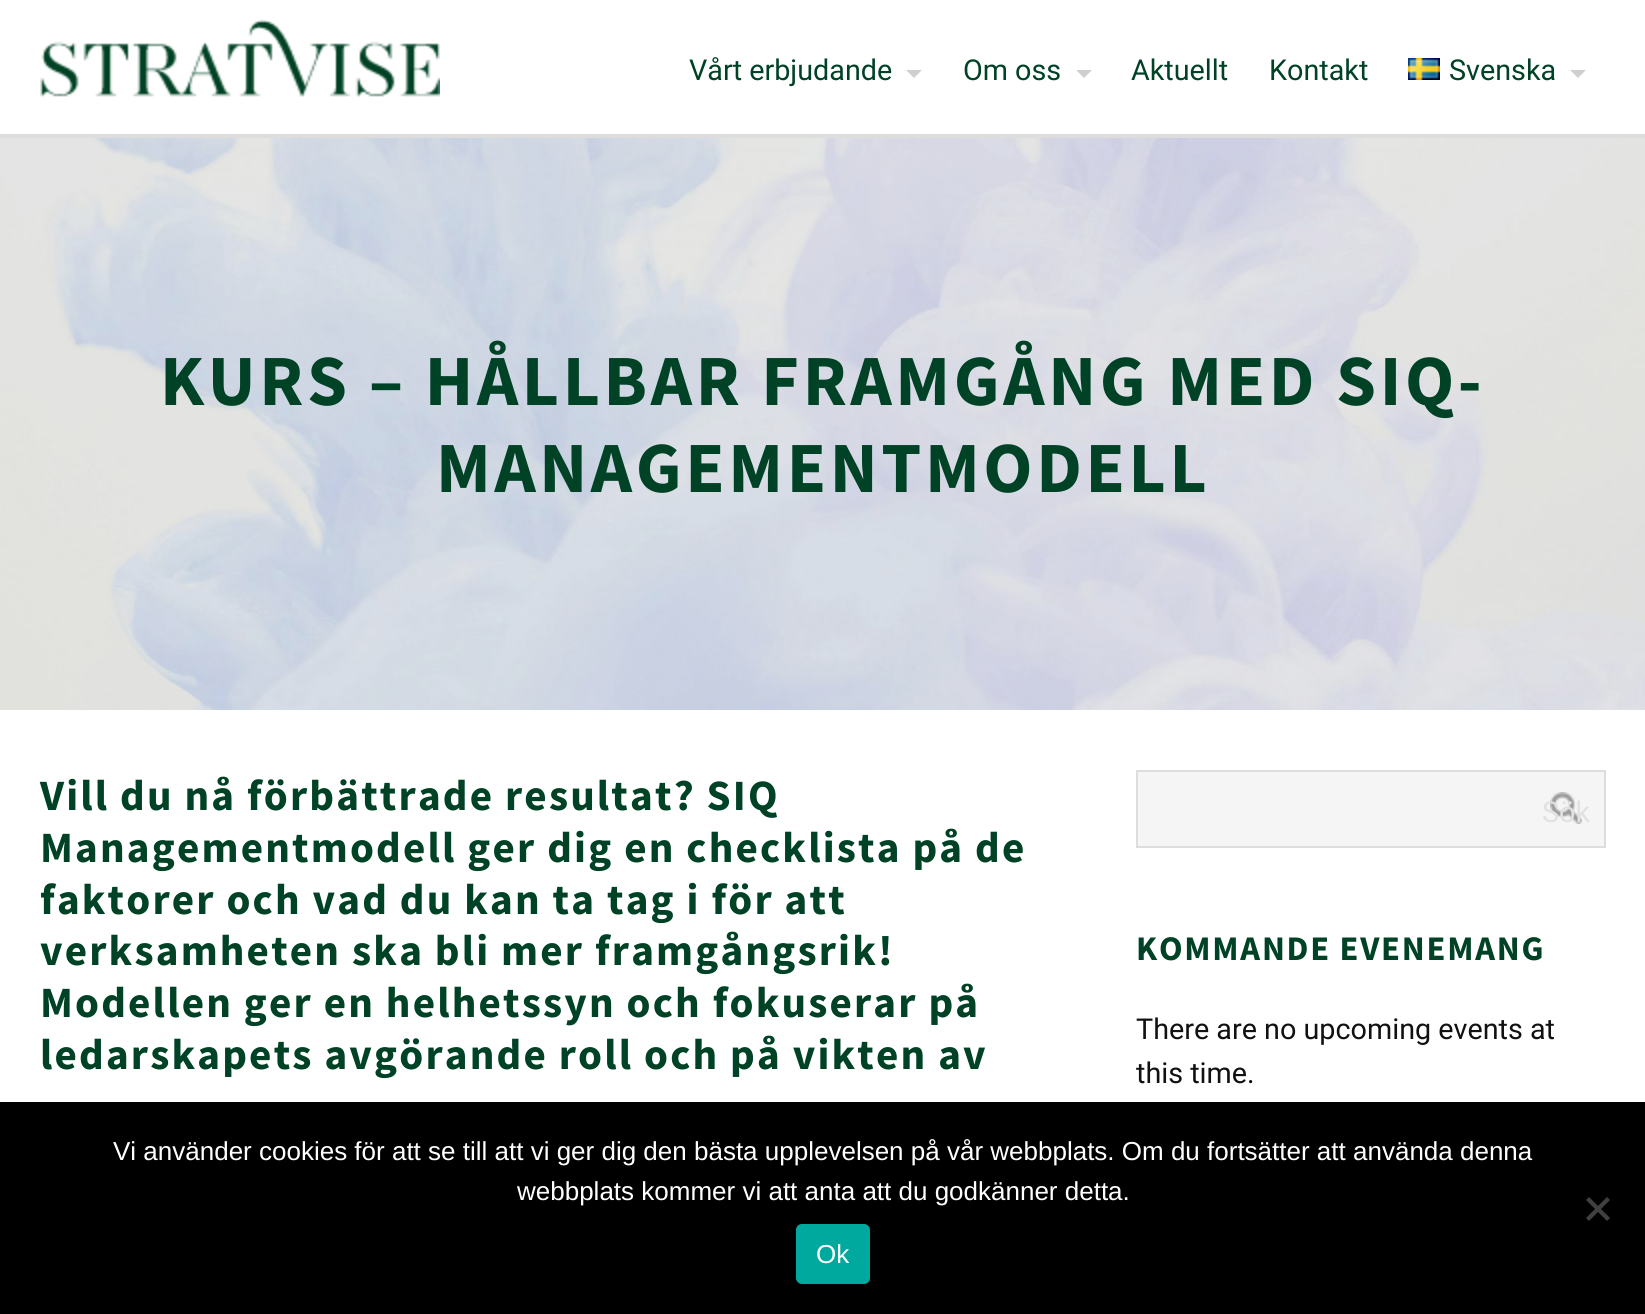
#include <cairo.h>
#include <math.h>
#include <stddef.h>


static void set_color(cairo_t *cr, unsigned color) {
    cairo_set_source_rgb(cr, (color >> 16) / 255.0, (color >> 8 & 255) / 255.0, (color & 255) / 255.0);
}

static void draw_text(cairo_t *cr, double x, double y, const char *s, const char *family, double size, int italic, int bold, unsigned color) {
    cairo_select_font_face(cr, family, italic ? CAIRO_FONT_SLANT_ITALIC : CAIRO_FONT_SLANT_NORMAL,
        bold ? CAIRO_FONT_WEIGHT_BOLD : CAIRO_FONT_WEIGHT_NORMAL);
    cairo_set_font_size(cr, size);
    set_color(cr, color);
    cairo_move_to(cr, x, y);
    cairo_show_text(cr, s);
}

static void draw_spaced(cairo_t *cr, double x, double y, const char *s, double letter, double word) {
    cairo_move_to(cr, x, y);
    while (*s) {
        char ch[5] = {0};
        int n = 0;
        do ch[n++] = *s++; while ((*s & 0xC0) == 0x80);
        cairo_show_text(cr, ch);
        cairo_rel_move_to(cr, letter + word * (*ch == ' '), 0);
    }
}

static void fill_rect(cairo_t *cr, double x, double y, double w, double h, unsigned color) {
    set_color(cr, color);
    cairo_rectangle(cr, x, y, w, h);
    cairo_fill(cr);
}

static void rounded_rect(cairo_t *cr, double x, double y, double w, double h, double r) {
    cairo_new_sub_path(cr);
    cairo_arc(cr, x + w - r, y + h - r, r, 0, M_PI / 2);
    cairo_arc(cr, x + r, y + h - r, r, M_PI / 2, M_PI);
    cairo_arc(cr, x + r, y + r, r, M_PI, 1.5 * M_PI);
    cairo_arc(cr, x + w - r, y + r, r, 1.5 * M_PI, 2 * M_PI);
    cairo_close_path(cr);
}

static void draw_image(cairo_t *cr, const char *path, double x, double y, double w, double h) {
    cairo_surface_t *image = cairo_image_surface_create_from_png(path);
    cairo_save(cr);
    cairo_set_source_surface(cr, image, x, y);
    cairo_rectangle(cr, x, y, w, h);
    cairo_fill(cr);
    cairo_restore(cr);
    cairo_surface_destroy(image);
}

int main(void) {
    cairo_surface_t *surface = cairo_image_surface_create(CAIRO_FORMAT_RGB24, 1645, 1314);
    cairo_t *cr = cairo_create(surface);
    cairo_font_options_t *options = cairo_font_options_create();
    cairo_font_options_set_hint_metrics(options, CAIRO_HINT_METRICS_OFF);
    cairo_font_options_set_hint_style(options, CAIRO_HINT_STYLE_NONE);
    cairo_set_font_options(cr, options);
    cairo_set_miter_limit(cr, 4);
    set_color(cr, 0xFFFFFF);
    cairo_paint(cr);
    draw_image(cr, "assets/img1.png", 0, 138, 1645, 572);
    fill_rect(cr, 0, 134, 1645, 4, 0xDDDDDD);
    draw_image(cr, "assets/img2.png", 40, 20, 400, 77);
    draw_text(cr, 689, 80, "Vårt erbjudande", "Roboto", 28.75, 0, 0, 0x004225);
    set_color(cr, 0xCFCFCF);
    cairo_new_path(cr);
    cairo_move_to(cr, 906, 70);
    cairo_line_to(cr, 922, 70);
    cairo_line_to(cr, 914, 78);
    cairo_close_path(cr);
    cairo_fill(cr);
    draw_text(cr, 963, 80, "Om oss", "Roboto", 28.75, 0, 0, 0x004225);
    set_color(cr, 0xCFCFCF);
    cairo_new_path(cr);
    cairo_move_to(cr, 1076, 70);
    cairo_line_to(cr, 1092, 70);
    cairo_line_to(cr, 1084, 78);
    cairo_close_path(cr);
    cairo_fill(cr);
    draw_text(cr, 1131, 80, "Aktuellt", "Roboto", 28.75, 0, 0, 0x004225);
    draw_text(cr, 1269, 80, "Kontakt", "Roboto", 28.75, 0, 0, 0x004225);
    draw_image(cr, "assets/img3.png", 1408, 58, 32, 22);
    draw_text(cr, 1449, 80, "Svenska", "Roboto", 28.75, 0, 0, 0x004225);
    set_color(cr, 0xCFCFCF);
    cairo_new_path(cr);
    cairo_move_to(cr, 1570, 70);
    cairo_line_to(cr, 1586, 70);
    cairo_line_to(cr, 1578, 78);
    cairo_close_path(cr);
    cairo_fill(cr);
    cairo_set_source_rgba(cr, 0, 0, 0, 0.1);
    cairo_rectangle(cr, 0, 138, 1645, 572);
    cairo_fill(cr);
    cairo_select_font_face(cr, "Source Sans Pro", CAIRO_FONT_SLANT_NORMAL, CAIRO_FONT_WEIGHT_BOLD);
    cairo_set_font_size(cr, 72);
    set_color(cr, 0x004225);
    draw_spaced(cr, 160, 405, "KURS – HÅLLBAR FRAMGÅNG MED SIQ-", 3.6, 0);
    draw_spaced(cr, 436, 492, "MANAGEMENTMODELL", 3.6, 0);
    cairo_set_font_size(cr, 43.2);
    draw_spaced(cr, 40, 810, "Vill du nå förbättrade resultat? SIQ", 2.15, 0);
    draw_spaced(cr, 40, 862, "Managementmodell ger dig en checklista på de", 2.15, 0);
    draw_spaced(cr, 40, 914, "faktorer och vad du kan ta tag i för att", 2.15, 0);
    draw_spaced(cr, 40, 965, "verksamheten ska bli mer framgångsrik!", 2.15, 0);
    draw_spaced(cr, 40, 1017, "Modellen ger en helhetssyn och fokuserar på", 2.15, 0);
    draw_spaced(cr, 40, 1069, "ledarskapets avgörande roll och på vikten av", 2.15, 0);
    set_color(cr, 0xF5F5F5);
    cairo_rectangle(cr, 1137, 771, 468, 76);
    cairo_fill_preserve(cr);
    set_color(cr, 0xDDDDDD);
    cairo_stroke(cr);
    draw_image(cr, "assets/img4.png", 1550, 792, 32, 32);
    draw_text(cr, 1542, 822, "Sök", "Roboto", 28.75, 0, 0, 0xE2E1E1);
    cairo_select_font_face(cr, "Source Sans Pro", CAIRO_FONT_SLANT_NORMAL, CAIRO_FONT_WEIGHT_BOLD);
    cairo_set_font_size(cr, 34.5);
    set_color(cr, 0x004225);
    draw_spaced(cr, 1136, 960, "KOMMANDE EVENEMANG", 1.75, 0);
    draw_text(cr, 1136, 1039, "There are no upcoming events at", "Roboto", 28.75, 0, 0, 0x111111);
    draw_text(cr, 1136, 1083, "this time.", "Roboto", 28.75, 0, 0, 0x111111);
    fill_rect(cr, 0, 1102, 1645, 212, 0x000000);
    draw_text(cr, 113, 1160, "Vi använder cookies för att se till att vi ger dig den bästa upplevelsen på vår webbplats. Om du fortsätter att använda denna", "Liberation Sans", 26, 0, 0, 0xFFFFFF);
    draw_text(cr, 517, 1200, "webbplats kommer vi att anta att du godkänner detta.", "Liberation Sans", 26, 0, 0, 0xFFFFFF);
    set_color(cr, 0x404040);
    cairo_new_path(cr);
    cairo_move_to(cr, 1607, 1197);
    cairo_line_to(cr, 1610, 1200);
    cairo_line_to(cr, 1589, 1221);
    cairo_line_to(cr, 1586, 1218);
    cairo_close_path(cr);
    cairo_fill(cr);
    cairo_new_path(cr);
    cairo_move_to(cr, 1586, 1200);
    cairo_line_to(cr, 1589, 1197);
    cairo_line_to(cr, 1610, 1218);
    cairo_line_to(cr, 1607, 1221);
    cairo_close_path(cr);
    cairo_fill(cr);
    set_color(cr, 0x00A99D);
    rounded_rect(cr, 796, 1224, 74, 60, 6);
    cairo_fill(cr);
    draw_text(cr, 816, 1263, "Ok", "Liberation Sans", 26, 0, 0, 0xFFFFFF);
    cairo_surface_write_to_png(surface, "output.png");
    cairo_font_options_destroy(options);
    cairo_destroy(cr);
    cairo_surface_destroy(surface);
    return 0;
}
